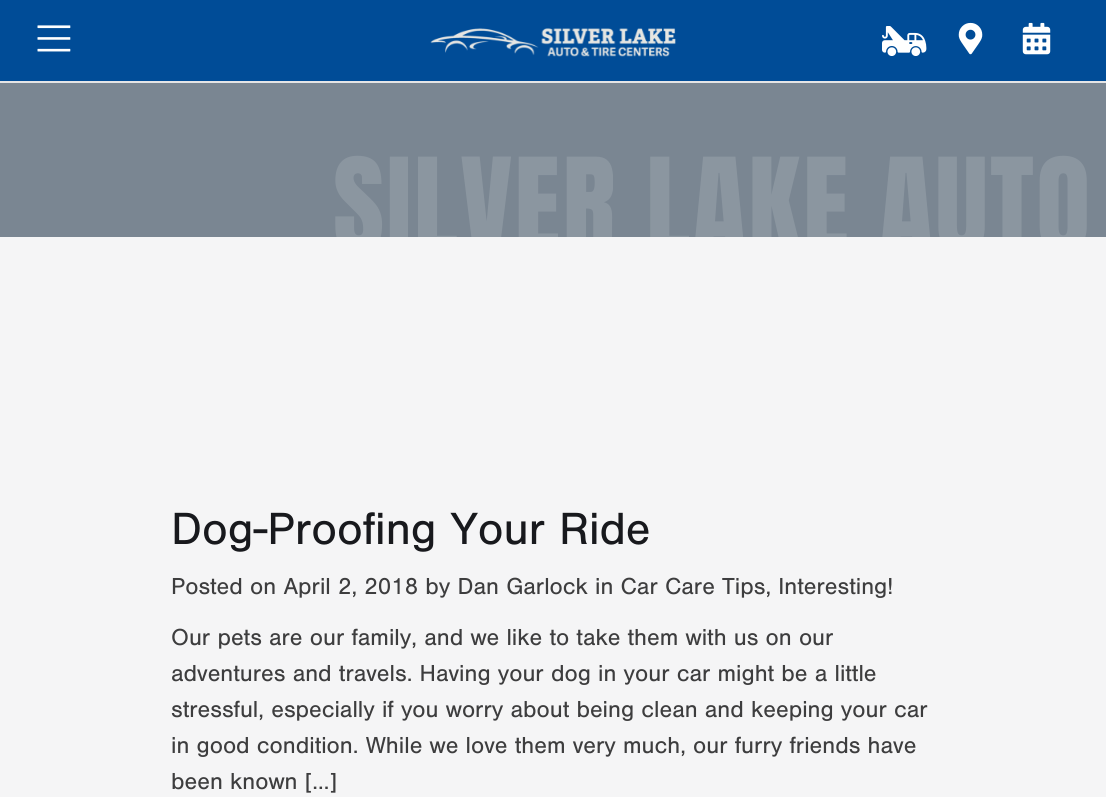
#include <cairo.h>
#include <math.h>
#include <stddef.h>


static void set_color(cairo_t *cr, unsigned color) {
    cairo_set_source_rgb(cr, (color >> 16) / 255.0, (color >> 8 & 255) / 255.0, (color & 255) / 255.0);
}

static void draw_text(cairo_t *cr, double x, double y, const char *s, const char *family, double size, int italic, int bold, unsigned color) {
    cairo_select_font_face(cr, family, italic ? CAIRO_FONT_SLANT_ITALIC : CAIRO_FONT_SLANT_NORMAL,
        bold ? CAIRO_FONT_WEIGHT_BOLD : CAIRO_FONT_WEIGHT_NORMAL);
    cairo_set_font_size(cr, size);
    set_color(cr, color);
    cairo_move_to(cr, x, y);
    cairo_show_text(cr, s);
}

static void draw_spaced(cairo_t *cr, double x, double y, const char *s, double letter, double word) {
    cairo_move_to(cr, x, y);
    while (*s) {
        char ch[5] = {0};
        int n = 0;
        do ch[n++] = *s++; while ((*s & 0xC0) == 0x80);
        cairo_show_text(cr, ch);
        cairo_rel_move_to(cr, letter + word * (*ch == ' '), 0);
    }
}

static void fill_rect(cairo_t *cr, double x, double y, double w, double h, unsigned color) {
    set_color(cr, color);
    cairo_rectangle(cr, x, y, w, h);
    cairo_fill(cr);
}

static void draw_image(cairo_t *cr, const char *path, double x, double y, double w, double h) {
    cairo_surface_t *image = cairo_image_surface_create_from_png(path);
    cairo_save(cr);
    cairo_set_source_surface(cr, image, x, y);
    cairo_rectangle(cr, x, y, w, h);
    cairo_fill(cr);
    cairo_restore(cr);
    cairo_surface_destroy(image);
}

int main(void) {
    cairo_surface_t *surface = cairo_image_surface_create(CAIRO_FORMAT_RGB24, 1106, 797);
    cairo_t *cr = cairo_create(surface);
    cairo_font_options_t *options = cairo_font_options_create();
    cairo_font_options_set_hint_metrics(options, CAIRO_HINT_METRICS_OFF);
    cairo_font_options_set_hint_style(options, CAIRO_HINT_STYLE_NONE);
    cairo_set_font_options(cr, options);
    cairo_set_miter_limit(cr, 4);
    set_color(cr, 0xF5F5F6);
    cairo_paint(cr);
    fill_rect(cr, 0, 0, 1106, 81, 0x004C97);
    fill_rect(cr, 0, 81, 1106, 2, 0xE5E5E6);
    draw_image(cr, "assets/img1.png", 37, 25, 34, 27);
    draw_image(cr, "assets/img2.png", 430, 28, 246, 29);
    draw_image(cr, "assets/img3.png", 882, 26, 45, 30);
    draw_image(cr, "assets/img4.png", 958, 22, 25, 33);
    draw_image(cr, "assets/img5.png", 1022, 22, 29, 33);
    fill_rect(cr, 0, 83, 1106, 154, 0x7A8692);
    cairo_save(cr);
    cairo_rectangle(cr, 0, 0, 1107, 237);
    cairo_clip(cr);
    cairo_select_font_face(cr, "Anton", CAIRO_FONT_SLANT_NORMAL, CAIRO_FONT_WEIGHT_NORMAL);
    cairo_set_font_size(cr, 111);
    set_color(cr, 0x8B96A0);
    draw_spaced(cr, 333, 252, "SILVER LAKE AUTO", 2.25, 0);
    cairo_restore(cr);
    draw_text(cr, 171, 544, "Dog-Proofing Your Ride", "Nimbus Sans", 46.75, 0, 0, 0x18191D);
    draw_text(cr, 171, 594, "Posted on April 2, 2018 by Dan Garlock in Car Care Tips, Interesting!", "Nimbus Sans", 24, 0, 0, 0x3D3D3E);
    draw_text(cr, 171, 645, "Our pets are our family, and we like to take them with us on our", "Nimbus Sans", 24, 0, 0, 0x3D3D3E);
    draw_text(cr, 171, 681, "adventures and travels. Having your dog in your car might be a little", "Nimbus Sans", 24, 0, 0, 0x3D3D3E);
    draw_text(cr, 171, 717, "stressful, especially if you worry about being clean and keeping your car", "Nimbus Sans", 24, 0, 0, 0x3D3D3E);
    draw_text(cr, 171, 753, "in good condition. While we love them very much, our furry friends have", "Nimbus Sans", 24, 0, 0, 0x3D3D3E);
    draw_text(cr, 171, 789, "been known […]", "Nimbus Sans", 24, 0, 0, 0x3D3D3E);
    cairo_surface_write_to_png(surface, "output.png");
    cairo_font_options_destroy(options);
    cairo_destroy(cr);
    cairo_surface_destroy(surface);
    return 0;
}
